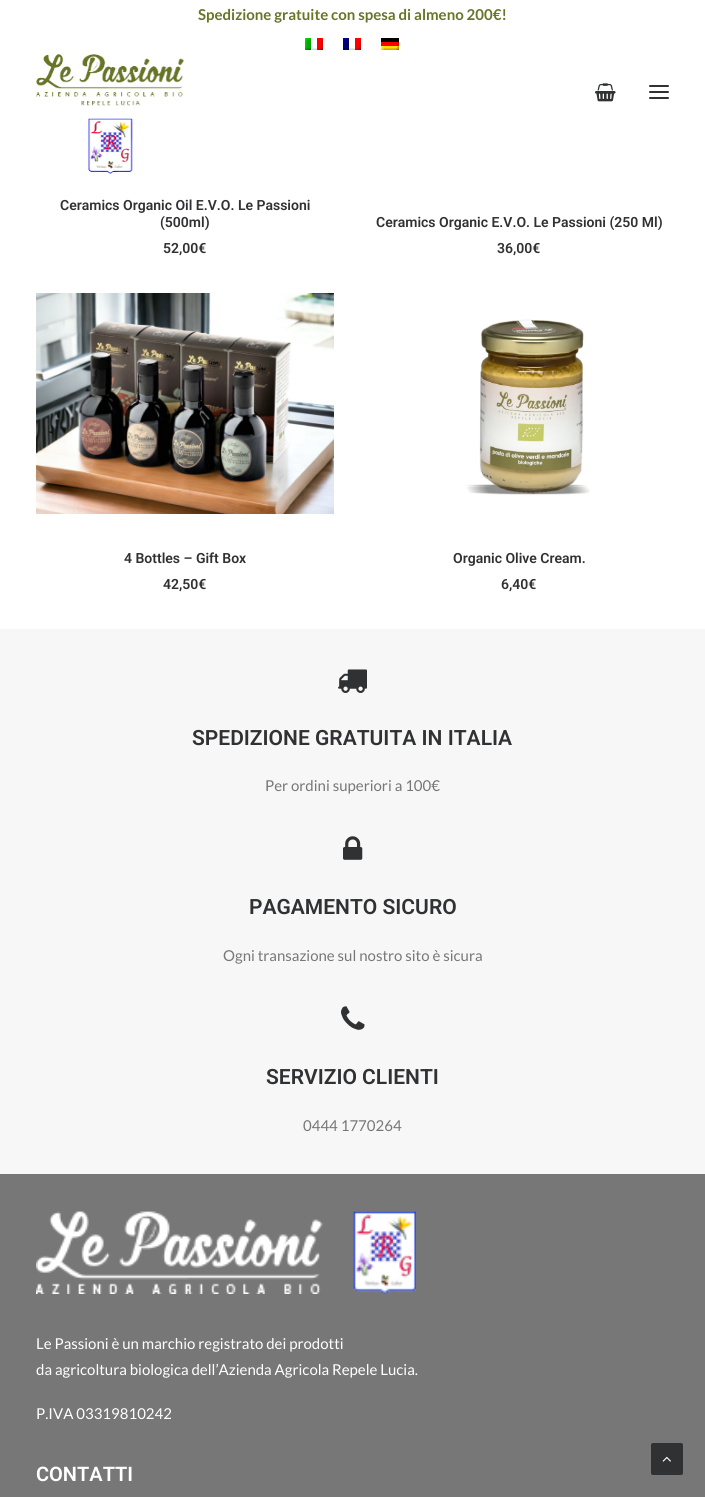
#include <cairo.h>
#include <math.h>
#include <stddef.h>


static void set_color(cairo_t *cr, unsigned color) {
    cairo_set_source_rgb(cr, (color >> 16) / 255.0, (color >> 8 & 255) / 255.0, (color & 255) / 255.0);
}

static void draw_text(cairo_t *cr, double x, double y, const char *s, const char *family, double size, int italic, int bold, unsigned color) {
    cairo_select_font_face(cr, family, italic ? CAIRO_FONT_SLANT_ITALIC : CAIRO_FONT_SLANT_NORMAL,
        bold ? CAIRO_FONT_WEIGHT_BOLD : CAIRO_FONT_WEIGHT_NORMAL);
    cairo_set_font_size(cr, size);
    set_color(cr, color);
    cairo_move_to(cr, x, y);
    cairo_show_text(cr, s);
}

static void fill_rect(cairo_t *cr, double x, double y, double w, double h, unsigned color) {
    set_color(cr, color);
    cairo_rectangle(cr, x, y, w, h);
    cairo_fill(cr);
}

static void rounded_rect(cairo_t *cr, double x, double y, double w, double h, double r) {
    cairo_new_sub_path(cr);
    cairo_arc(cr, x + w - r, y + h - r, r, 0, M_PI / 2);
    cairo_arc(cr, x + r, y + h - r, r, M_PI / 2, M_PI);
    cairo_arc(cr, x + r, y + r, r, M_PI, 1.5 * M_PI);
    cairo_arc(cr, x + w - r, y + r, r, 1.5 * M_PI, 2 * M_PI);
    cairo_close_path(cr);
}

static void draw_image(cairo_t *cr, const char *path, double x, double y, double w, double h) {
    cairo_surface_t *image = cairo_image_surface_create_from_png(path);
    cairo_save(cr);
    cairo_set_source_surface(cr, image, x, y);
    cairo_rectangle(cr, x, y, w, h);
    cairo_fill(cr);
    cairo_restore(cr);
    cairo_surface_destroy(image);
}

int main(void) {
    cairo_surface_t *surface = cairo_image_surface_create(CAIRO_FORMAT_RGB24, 705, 1497);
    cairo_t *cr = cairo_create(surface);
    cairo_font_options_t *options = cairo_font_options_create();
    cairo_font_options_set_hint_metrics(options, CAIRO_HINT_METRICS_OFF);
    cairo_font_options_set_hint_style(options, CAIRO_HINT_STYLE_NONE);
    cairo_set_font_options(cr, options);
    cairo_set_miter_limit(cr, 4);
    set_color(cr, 0xF7F7F7);
    cairo_paint(cr);
    fill_rect(cr, 0, 0, 705, 629, 0xFFFFFF);
    draw_text(cr, 198, 20, "Spedizione gratuite con spesa di almeno 200€!", "Lato", 15, 0, 1, 0x677527);
    draw_image(cr, "assets/img1.png", 305, 38, 18, 12);
    draw_image(cr, "assets/img2.png", 343, 38, 18, 12);
    draw_image(cr, "assets/img3.png", 381, 38, 18, 12);
    draw_image(cr, "assets/img4.png", 36, 54, 148, 120);
    draw_image(cr, "assets/img5.png", 595, 83, 21, 19);
    set_color(cr, 0x303133);
    rounded_rect(cr, 649, 91, 20, 2, 1);
    cairo_fill(cr);
    rounded_rect(cr, 649, 85, 20, 2, 1);
    cairo_fill(cr);
    rounded_rect(cr, 649, 97, 20, 2, 1);
    cairo_fill(cr);
    draw_text(cr, 60, 210, "Ceramics Organic Oil E.V.O. Le Passioni", "Roboto SemiBold", 14, 0, 0, 0x303133);
    draw_text(cr, 160, 227, "(500ml)", "Roboto SemiBold", 14, 0, 0, 0x303133);
    draw_text(cr, 163, 253, "52,00€", "Roboto SemiBold", 14, 0, 0, 0x303133);
    draw_text(cr, 376, 227, "Ceramics Organic E.V.O. Le Passioni (250 Ml)", "Roboto SemiBold", 14, 0, 0, 0x303133);
    draw_text(cr, 497, 253, "36,00€", "Roboto SemiBold", 14, 0, 0, 0x303133);
    draw_image(cr, "assets/img6.png", 36, 293, 298, 221);
    draw_text(cr, 124, 563, "4 Bottles – Gift Box", "Roboto SemiBold", 14, 0, 0, 0x303133);
    draw_text(cr, 163, 589, "42,50€", "Roboto SemiBold", 14, 0, 0, 0x303133);
    draw_image(cr, "assets/img7.png", 466, 319, 124, 176);
    draw_text(cr, 453, 563, "Organic Olive Cream.", "Roboto SemiBold", 14, 0, 0, 0x303133);
    draw_text(cr, 501, 589, "6,40€", "Roboto SemiBold", 14, 0, 0, 0x303133);
    draw_image(cr, "assets/img8.png", 338, 669, 29, 24);
    draw_text(cr, 192, 745, "SPEDIZIONE GRATUITA IN ITALIA", "Roboto SemiBold", 21, 0, 0, 0x303133);
    draw_text(cr, 265, 791, "Per ordini superiori a 100€", "Lato", 15, 0, 0, 0x777777);
    draw_image(cr, "assets/img9.png", 343, 836, 20, 24);
    draw_text(cr, 249, 914, "PAGAMENTO SICURO", "Roboto SemiBold", 21, 0, 0, 0x303133);
    draw_text(cr, 223, 961, "Ogni transazione sul nostro sito è sicura", "Lato", 15, 0, 0, 0x777777);
    draw_image(cr, "assets/img10.png", 341, 1006, 24, 24);
    draw_text(cr, 266, 1084, "SERVIZIO CLIENTI", "Roboto SemiBold", 21, 0, 0, 0x303133);
    draw_text(cr, 303, 1131, "0444 1770264", "Lato", 15, 0, 0, 0x777777);
    fill_rect(cr, 0, 1174, 705, 323, 0x777777);
    draw_image(cr, "assets/img11.png", 36, 1211, 380, 83);
    draw_text(cr, 36, 1349, "Le Passioni è un marchio registrato dei prodotti", "Lato", 15, 0, 0, 0xFFFFFF);
    draw_text(cr, 36, 1375, "da agricoltura biologica dell’Azienda Agricola Repele Lucia.", "Lato", 15, 0, 0, 0xFFFFFF);
    draw_text(cr, 36, 1419, "P.IVA 03319810242", "Lato", 15, 0, 0, 0xFFFFFF);
    draw_text(cr, 36, 1481, "CONTATTI", "Roboto SemiBold", 20, 0, 0, 0xFFFFFF);
    set_color(cr, 0x303133);
    rounded_rect(cr, 651.5, 1443.5, 31, 31, 1.5);
    cairo_fill_preserve(cr);
    cairo_set_line_width(cr, 1);
    cairo_stroke(cr);
    draw_image(cr, "assets/img12.png", 662, 1456, 9, 6);
    cairo_surface_write_to_png(surface, "output.png");
    cairo_font_options_destroy(options);
    cairo_destroy(cr);
    cairo_surface_destroy(surface);
    return 0;
}
